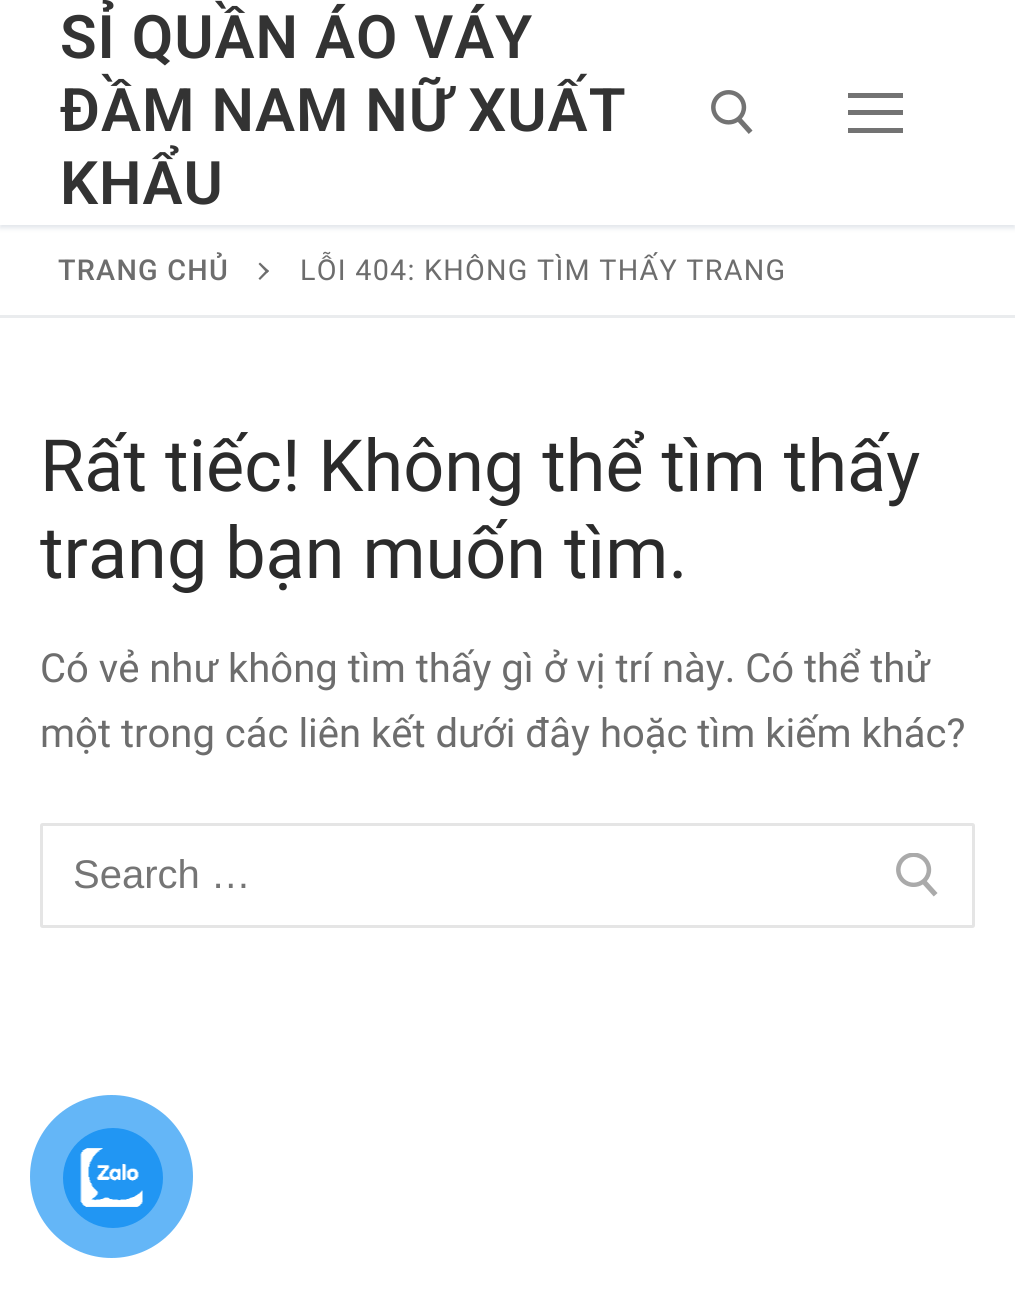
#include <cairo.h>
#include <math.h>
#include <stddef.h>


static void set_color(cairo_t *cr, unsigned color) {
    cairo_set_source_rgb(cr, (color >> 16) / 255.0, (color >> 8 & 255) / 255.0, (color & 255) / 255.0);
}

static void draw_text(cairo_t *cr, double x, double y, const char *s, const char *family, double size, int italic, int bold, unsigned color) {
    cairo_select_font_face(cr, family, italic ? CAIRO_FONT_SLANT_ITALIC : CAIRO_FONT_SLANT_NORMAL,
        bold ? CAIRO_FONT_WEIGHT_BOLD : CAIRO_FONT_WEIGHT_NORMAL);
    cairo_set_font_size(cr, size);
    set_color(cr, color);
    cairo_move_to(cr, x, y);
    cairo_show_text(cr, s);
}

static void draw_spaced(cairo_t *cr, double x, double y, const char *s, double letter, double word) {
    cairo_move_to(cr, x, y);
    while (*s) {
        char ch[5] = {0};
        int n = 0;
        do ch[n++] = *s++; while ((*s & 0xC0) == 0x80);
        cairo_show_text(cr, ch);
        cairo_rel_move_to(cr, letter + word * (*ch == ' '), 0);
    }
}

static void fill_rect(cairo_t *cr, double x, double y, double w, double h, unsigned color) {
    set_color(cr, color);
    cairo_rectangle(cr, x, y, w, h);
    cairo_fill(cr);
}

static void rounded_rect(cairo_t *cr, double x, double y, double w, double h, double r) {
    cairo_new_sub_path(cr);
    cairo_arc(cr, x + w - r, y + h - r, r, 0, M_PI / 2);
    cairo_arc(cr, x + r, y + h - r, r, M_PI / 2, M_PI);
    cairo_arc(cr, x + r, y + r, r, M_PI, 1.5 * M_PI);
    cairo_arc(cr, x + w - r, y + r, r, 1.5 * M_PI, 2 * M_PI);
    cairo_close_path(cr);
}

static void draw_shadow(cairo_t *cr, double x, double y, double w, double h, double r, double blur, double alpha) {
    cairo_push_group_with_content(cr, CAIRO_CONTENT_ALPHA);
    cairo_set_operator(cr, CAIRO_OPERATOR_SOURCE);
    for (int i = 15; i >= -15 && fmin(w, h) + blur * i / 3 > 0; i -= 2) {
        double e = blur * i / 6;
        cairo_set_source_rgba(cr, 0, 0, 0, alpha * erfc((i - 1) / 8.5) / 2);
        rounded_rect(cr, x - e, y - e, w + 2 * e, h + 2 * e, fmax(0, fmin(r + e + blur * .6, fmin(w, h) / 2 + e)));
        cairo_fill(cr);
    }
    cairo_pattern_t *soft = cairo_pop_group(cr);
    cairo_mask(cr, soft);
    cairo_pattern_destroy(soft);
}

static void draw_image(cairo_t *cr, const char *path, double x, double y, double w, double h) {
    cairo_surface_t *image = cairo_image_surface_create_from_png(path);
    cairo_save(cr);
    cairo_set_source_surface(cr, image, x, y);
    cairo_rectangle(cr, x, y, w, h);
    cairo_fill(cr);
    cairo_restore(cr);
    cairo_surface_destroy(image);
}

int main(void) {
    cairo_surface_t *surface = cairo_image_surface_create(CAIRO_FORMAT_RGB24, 1015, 1290);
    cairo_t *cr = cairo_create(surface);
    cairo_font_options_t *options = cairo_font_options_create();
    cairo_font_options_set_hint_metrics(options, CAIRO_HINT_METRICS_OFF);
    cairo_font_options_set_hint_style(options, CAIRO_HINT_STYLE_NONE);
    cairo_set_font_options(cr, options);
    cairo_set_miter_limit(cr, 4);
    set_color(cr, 0xFFFFFF);
    cairo_paint(cr);
    cairo_save(cr);
    cairo_rectangle(cr, 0, 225, 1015, 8);
    cairo_clip(cr);
    set_color(cr, 0xE1E5EA);
    draw_shadow(cr, 0, 3, 1015, 225, 0, 2.5, 1);
    cairo_restore(cr);
    cairo_select_font_face(cr, "Roboto SemiBold", CAIRO_FONT_SLANT_NORMAL, CAIRO_FONT_WEIGHT_NORMAL);
    cairo_set_font_size(cr, 60);
    set_color(cr, 0x333333);
    draw_spaced(cr, 60, 58, "SỈ QUẦN ÁO VÁY", 1, 0);
    draw_spaced(cr, 60, 131, "ĐẦM NAM NỮ XUẤT", 1, 0);
    draw_spaced(cr, 60, 204, "KHẨU", 1, 0);
    draw_image(cr, "assets/img1.png", 711, 90, 42, 44);
    fill_rect(cr, 848, 110, 55, 5, 0x737373);
    fill_rect(cr, 848, 93, 55, 5, 0x737373);
    fill_rect(cr, 848, 128, 55, 5, 0x737373);
    fill_rect(cr, 0, 315, 1015, 3, 0xEAECEE);
    cairo_select_font_face(cr, "Roboto Medium", CAIRO_FONT_SLANT_NORMAL, CAIRO_FONT_WEIGHT_NORMAL);
    cairo_set_font_size(cr, 28.75);
    set_color(cr, 0x6D6D6D);
    draw_spaced(cr, 58, 280, "TRANG CHỦ", 1.25, 0);
    cairo_new_path(cr);
    cairo_move_to(cr, 269, 271);
    cairo_line_to(cr, 260, 280);
    cairo_line_to(cr, 258.5, 278.5);
    cairo_line_to(cr, 267, 269.5);
    cairo_close_path(cr);
    cairo_fill(cr);
    cairo_new_path(cr);
    cairo_move_to(cr, 269, 271);
    cairo_line_to(cr, 267, 273);
    cairo_line_to(cr, 258.5, 264);
    cairo_line_to(cr, 260, 262.5);
    cairo_close_path(cr);
    cairo_fill(cr);
    cairo_select_font_face(cr, "Roboto", CAIRO_FONT_SLANT_NORMAL, CAIRO_FONT_WEIGHT_NORMAL);
    draw_spaced(cr, 300, 280, "LỖI 404: KHÔNG TÌM THẤY TRANG", 1.25, 0);
    draw_text(cr, 40, 491, "Rất tiếc! Không thể tìm thấy", "Roboto", 72, 0, 0, 0x2B2B2B);
    draw_text(cr, 40, 578, "trang bạn muốn tìm.", "Roboto", 72, 0, 0, 0x2B2B2B);
    draw_text(cr, 40, 682, "Có vẻ như không tìm thấy gì ở vị trí này. Có thể thử", "Roboto", 40, 0, 0, 0x6D6D6D);
    draw_text(cr, 40, 747, "một trong các liên kết dưới đây hoặc tìm kiếm khác?", "Roboto", 40, 0, 0, 0x6D6D6D);
    rounded_rect(cr, 41.5, 824.5, 932, 102, 1);
    set_color(cr, 0xE5E5E5);
    cairo_set_line_width(cr, 3);
    cairo_stroke(cr);
    draw_text(cr, 73, 888, "Search …", "Liberation Sans", 40, 0, 0, 0x757575);
    draw_image(cr, "assets/img2.png", 896, 853, 42, 44);
    set_color(cr, 0x64B6F7);
    cairo_arc(cr, 111.5, 1176.5, 81.5, 0, 2 * M_PI);
    cairo_fill(cr);
    set_color(cr, 0x2196F3);
    cairo_arc(cr, 113, 1178, 50, 0, 2 * M_PI);
    cairo_fill(cr);
    draw_image(cr, "assets/img3.png", 80, 1148, 63, 59);
    cairo_surface_write_to_png(surface, "output.png");
    cairo_font_options_destroy(options);
    cairo_destroy(cr);
    cairo_surface_destroy(surface);
    return 0;
}
